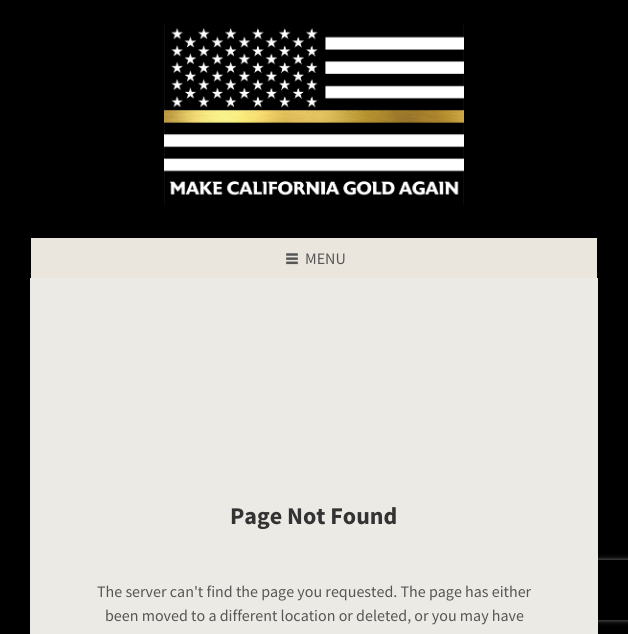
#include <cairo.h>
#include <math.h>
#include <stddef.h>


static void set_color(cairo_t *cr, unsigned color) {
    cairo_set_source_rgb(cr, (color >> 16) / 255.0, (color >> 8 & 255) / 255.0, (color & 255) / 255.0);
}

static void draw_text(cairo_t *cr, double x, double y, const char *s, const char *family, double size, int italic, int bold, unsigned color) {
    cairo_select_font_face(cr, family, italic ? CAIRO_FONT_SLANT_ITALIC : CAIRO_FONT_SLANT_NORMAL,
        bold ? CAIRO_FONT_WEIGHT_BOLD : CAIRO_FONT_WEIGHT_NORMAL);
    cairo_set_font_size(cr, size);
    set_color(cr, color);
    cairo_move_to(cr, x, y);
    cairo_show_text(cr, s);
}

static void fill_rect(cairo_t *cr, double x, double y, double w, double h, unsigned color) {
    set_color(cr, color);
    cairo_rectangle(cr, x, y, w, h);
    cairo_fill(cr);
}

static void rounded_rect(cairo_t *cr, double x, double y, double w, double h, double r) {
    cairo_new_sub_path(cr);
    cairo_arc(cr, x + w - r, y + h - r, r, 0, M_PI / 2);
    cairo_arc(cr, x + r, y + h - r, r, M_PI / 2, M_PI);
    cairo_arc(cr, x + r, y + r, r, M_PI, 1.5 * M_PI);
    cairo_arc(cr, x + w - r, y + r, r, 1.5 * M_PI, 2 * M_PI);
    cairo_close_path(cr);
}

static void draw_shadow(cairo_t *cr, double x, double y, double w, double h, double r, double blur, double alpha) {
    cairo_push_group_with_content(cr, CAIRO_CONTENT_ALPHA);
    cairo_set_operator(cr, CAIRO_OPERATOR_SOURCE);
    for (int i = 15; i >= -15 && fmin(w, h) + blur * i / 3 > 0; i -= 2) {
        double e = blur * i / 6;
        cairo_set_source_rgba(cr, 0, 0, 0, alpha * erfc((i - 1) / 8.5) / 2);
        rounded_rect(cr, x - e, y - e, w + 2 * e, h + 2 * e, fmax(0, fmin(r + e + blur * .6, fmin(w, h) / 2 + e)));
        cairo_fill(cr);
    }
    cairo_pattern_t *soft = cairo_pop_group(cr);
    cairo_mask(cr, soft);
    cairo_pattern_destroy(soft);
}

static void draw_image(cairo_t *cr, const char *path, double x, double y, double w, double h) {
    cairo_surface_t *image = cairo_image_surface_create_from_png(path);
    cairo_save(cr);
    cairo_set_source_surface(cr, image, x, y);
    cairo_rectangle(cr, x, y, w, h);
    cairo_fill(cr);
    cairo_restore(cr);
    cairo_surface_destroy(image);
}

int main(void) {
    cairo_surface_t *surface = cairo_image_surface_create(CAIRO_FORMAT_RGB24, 628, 634);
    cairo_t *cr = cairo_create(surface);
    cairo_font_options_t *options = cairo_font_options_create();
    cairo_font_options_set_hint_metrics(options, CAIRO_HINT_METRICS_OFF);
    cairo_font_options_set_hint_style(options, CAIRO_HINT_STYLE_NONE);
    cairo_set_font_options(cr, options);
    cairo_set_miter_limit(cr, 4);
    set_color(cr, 0x000000);
    cairo_paint(cr);
    draw_image(cr, "assets/img1.png", 164, 25, 300, 180);
    fill_rect(cr, 31, 238, 566, 40, 0xEAE6DD);
    draw_image(cr, "assets/img2.png", 286, 253, 12, 12);
    draw_text(cr, 305, 264, "MENU", "Source Sans Pro", 16, 0, 0, 0x565656);
    cairo_save(cr);
    cairo_set_fill_rule(cr, CAIRO_FILL_RULE_EVEN_ODD);
    cairo_new_path(cr);
    cairo_move_to(cr, 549, 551);
    cairo_line_to(cr, 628, 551);
    cairo_line_to(cr, 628, 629);
    cairo_line_to(cr, 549, 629);
    cairo_close_path(cr);
    cairo_move_to(cr, 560, 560);
    cairo_line_to(cr, 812, 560);
    cairo_curve_to(cr, 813, 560, 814, 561, 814, 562);
    cairo_line_to(cr, 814, 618);
    cairo_curve_to(cr, 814, 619, 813, 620, 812, 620);
    cairo_line_to(cr, 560, 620);
    cairo_curve_to(cr, 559, 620, 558, 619, 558, 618);
    cairo_line_to(cr, 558, 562);
    cairo_curve_to(cr, 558, 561, 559, 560, 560, 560);
    cairo_close_path(cr);
    cairo_clip(cr);
    set_color(cr, 0x808080);
    draw_shadow(cr, 558, 560, 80, 60, 2, 2.5, 1);
    cairo_restore(cr);
    cairo_set_source_rgba(cr, 0, 0, 0, 0.05);
    cairo_new_path(cr);
    cairo_move_to(cr, 31, 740);
    cairo_line_to(cr, 31, 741);
    cairo_line_to(cr, 599, 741);
    cairo_line_to(cr, 599, 279);
    cairo_line_to(cr, 598, 279);
    cairo_line_to(cr, 598, 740);
    cairo_close_path(cr);
    cairo_fill(cr);
    fill_rect(cr, 30, 278, 568, 356, 0xECEAE5);
    draw_text(cr, 230, 524, "Page Not Found", "Source Sans Pro", 24, 0, 1, 0x333333);
    draw_text(cr, 97, 597, "The server can't find the page you requested. The page has either", "Source Sans Pro", 16, 0, 0, 0x565656);
    draw_text(cr, 105, 621, "been moved to a different location or deleted, or you may have", "Source Sans Pro", 16, 0, 0, 0x565656);
    cairo_surface_write_to_png(surface, "output.png");
    cairo_font_options_destroy(options);
    cairo_destroy(cr);
    cairo_surface_destroy(surface);
    return 0;
}
